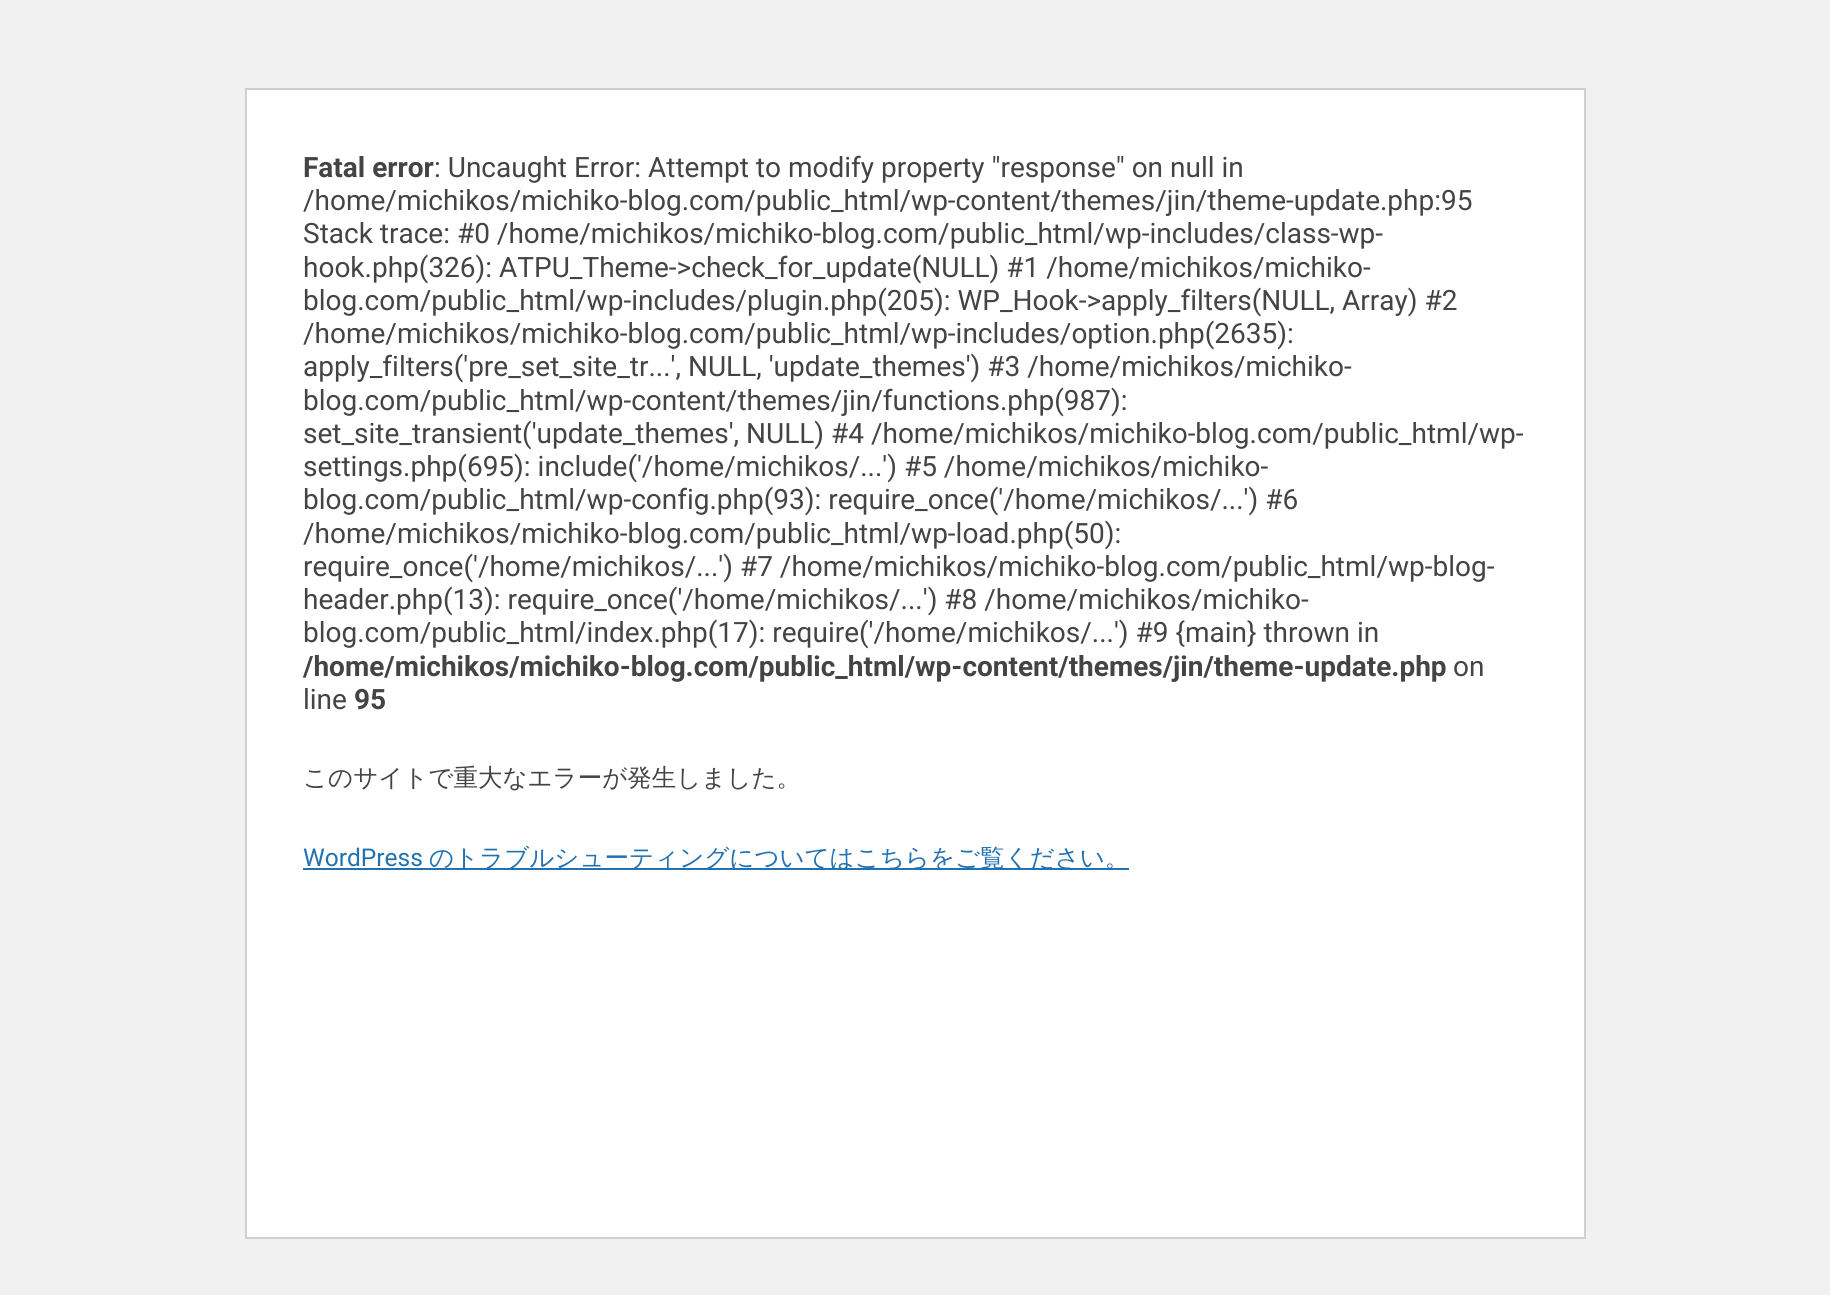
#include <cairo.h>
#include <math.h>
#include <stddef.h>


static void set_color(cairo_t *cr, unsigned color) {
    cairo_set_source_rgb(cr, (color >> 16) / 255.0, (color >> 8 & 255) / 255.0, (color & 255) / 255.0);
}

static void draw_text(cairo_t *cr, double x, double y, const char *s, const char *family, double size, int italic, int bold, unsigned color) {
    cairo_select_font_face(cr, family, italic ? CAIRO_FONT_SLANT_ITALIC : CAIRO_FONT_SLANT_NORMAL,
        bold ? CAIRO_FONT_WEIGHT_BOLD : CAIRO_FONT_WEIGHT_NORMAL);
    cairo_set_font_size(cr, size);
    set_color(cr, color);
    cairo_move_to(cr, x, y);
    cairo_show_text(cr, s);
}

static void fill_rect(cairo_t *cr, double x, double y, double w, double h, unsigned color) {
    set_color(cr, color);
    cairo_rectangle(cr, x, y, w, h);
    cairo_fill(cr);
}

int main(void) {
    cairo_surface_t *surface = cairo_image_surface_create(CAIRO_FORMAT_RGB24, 1830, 1295);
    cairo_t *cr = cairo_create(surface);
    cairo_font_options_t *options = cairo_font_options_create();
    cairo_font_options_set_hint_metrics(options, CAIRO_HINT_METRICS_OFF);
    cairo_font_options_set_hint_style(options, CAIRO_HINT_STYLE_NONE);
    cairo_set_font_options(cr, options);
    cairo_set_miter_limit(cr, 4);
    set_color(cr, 0xF1F1F1);
    cairo_paint(cr);
    set_color(cr, 0xFFFFFF);
    cairo_rectangle(cr, 246, 89, 1339, 1149);
    cairo_fill_preserve(cr);
    set_color(cr, 0xCCD0D4);
    cairo_stroke(cr);
    draw_text(cr, 303, 177, "Fatal error", "Roboto", 28, 0, 1, 0x444444);
    draw_text(cr, 434, 177, ": Uncaught Error: Attempt to modify property \"response\" on null in", "Roboto", 28, 0, 0, 0x444444);
    draw_text(cr, 303, 210, "/home/michikos/michiko-blog.com/public_html/wp-content/themes/jin/theme-update.php:95", "Roboto", 28, 0, 0, 0x444444);
    draw_text(cr, 303, 243, "Stack trace: #0 /home/michikos/michiko-blog.com/public_html/wp-includes/class-wp-", "Roboto", 28, 0, 0, 0x444444);
    draw_text(cr, 303, 277, "hook.php(326): ATPU_Theme->check_for_update(NULL) #1 /home/michikos/michiko-", "Roboto", 28, 0, 0, 0x444444);
    draw_text(cr, 303, 310, "blog.com/public_html/wp-includes/plugin.php(205): WP_Hook->apply_filters(NULL, Array) #2", "Roboto", 28, 0, 0, 0x444444);
    draw_text(cr, 303, 343, "/home/michikos/michiko-blog.com/public_html/wp-includes/option.php(2635):", "Roboto", 28, 0, 0, 0x444444);
    draw_text(cr, 303, 376, "apply_filters('pre_set_site_tr...', NULL, 'update_themes') #3 /home/michikos/michiko-", "Roboto", 28, 0, 0, 0x444444);
    draw_text(cr, 303, 410, "blog.com/public_html/wp-content/themes/jin/functions.php(987):", "Roboto", 28, 0, 0, 0x444444);
    draw_text(cr, 303, 443, "set_site_transient('update_themes', NULL) #4 /home/michikos/michiko-blog.com/public_html/wp-", "Roboto", 28, 0, 0, 0x444444);
    draw_text(cr, 303, 476, "settings.php(695): include('/home/michikos/...') #5 /home/michikos/michiko-", "Roboto", 28, 0, 0, 0x444444);
    draw_text(cr, 303, 509, "blog.com/public_html/wp-config.php(93): require_once('/home/michikos/...') #6", "Roboto", 28, 0, 0, 0x444444);
    draw_text(cr, 303, 543, "/home/michikos/michiko-blog.com/public_html/wp-load.php(50):", "Roboto", 28, 0, 0, 0x444444);
    draw_text(cr, 303, 576, "require_once('/home/michikos/...') #7 /home/michikos/michiko-blog.com/public_html/wp-blog-", "Roboto", 28, 0, 0, 0x444444);
    draw_text(cr, 303, 609, "header.php(13): require_once('/home/michikos/...') #8 /home/michikos/michiko-", "Roboto", 28, 0, 0, 0x444444);
    draw_text(cr, 303, 642, "blog.com/public_html/index.php(17): require('/home/michikos/...') #9 {main} thrown in", "Roboto", 28, 0, 0, 0x444444);
    draw_text(cr, 303, 676, "/home/michikos/michiko-blog.com/public_html/wp-content/themes/jin/theme-update.php", "Roboto", 28, 0, 1, 0x444444);
    draw_text(cr, 1453, 676, "on", "Roboto", 28, 0, 0, 0x444444);
    draw_text(cr, 303, 709, "line", "Roboto", 28, 0, 0, 0x444444);
    draw_text(cr, 354, 709, "95", "Roboto", 28, 0, 1, 0x444444);
    draw_text(cr, 303, 786, "このサイトで重大なエラーが発生しました。", "WenQuanYi Zen Hei Medium", 24.5, 0, 0, 0x444444);
    draw_text(cr, 303, 866, "WordPress", "Roboto", 24.5, 0, 0, 0x2271B1);
    fill_rect(cr, 303, 868, 826, 2, 0x2271B1);
    draw_text(cr, 429, 866, "のトラブルシューティングについてはこちらをご覧ください。", "WenQuanYi Zen Hei Medium", 24.5, 0, 0, 0x2271B1);
    cairo_surface_write_to_png(surface, "output.png");
    cairo_font_options_destroy(options);
    cairo_destroy(cr);
    cairo_surface_destroy(surface);
    return 0;
}
